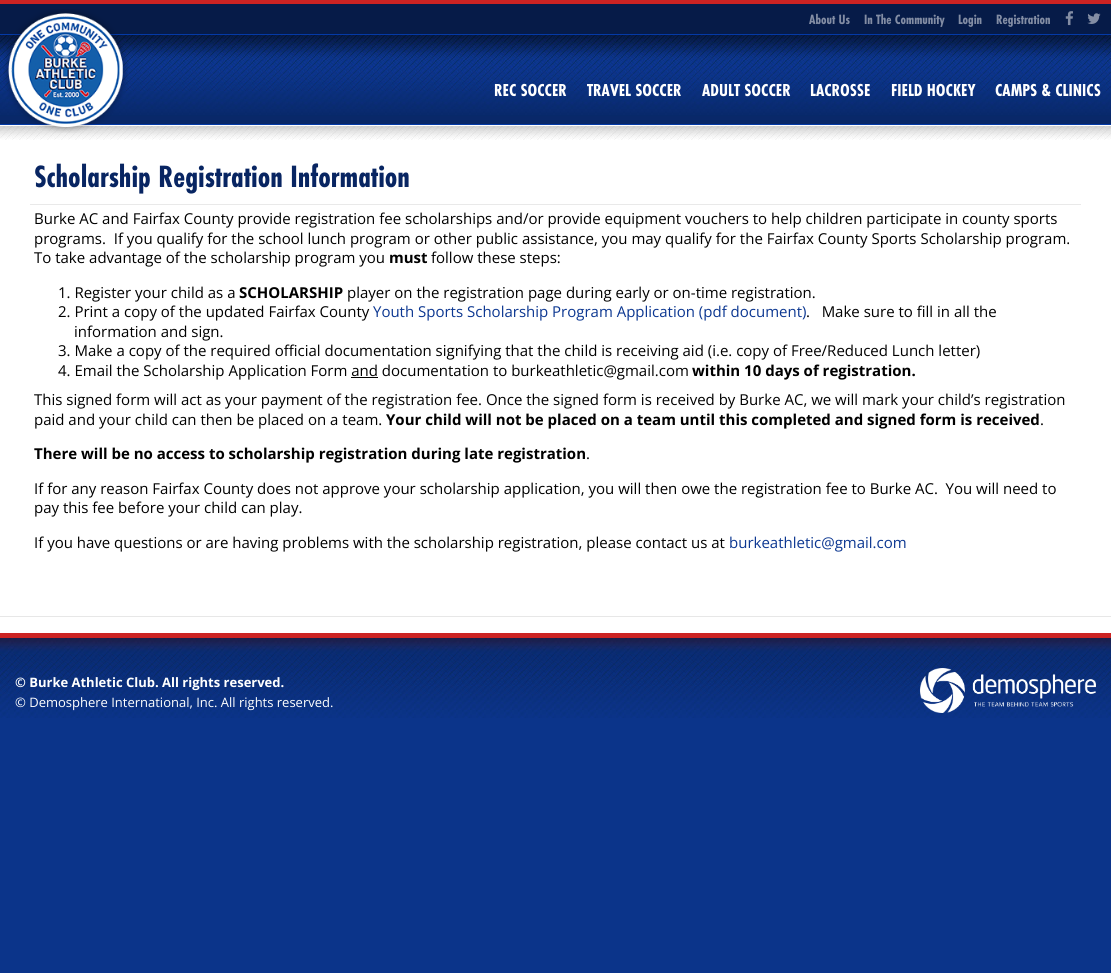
#include <cairo.h>
#include <math.h>
#include <stddef.h>


static void set_color(cairo_t *cr, unsigned color) {
    cairo_set_source_rgb(cr, (color >> 16) / 255.0, (color >> 8 & 255) / 255.0, (color & 255) / 255.0);
}

static void draw_text(cairo_t *cr, double x, double y, const char *s, const char *family, double size, int italic, int bold, unsigned color) {
    cairo_select_font_face(cr, family, italic ? CAIRO_FONT_SLANT_ITALIC : CAIRO_FONT_SLANT_NORMAL,
        bold ? CAIRO_FONT_WEIGHT_BOLD : CAIRO_FONT_WEIGHT_NORMAL);
    cairo_set_font_size(cr, size);
    set_color(cr, color);
    cairo_move_to(cr, x, y);
    cairo_show_text(cr, s);
}

static void fill_rect(cairo_t *cr, double x, double y, double w, double h, unsigned color) {
    set_color(cr, color);
    cairo_rectangle(cr, x, y, w, h);
    cairo_fill(cr);
}

static void draw_image(cairo_t *cr, const char *path, double x, double y, double w, double h) {
    cairo_surface_t *image = cairo_image_surface_create_from_png(path);
    cairo_save(cr);
    cairo_set_source_surface(cr, image, x, y);
    cairo_rectangle(cr, x, y, w, h);
    cairo_fill(cr);
    cairo_restore(cr);
    cairo_surface_destroy(image);
}

int main(void) {
    cairo_surface_t *surface = cairo_image_surface_create(CAIRO_FORMAT_RGB24, 1111, 973);
    cairo_t *cr = cairo_create(surface);
    cairo_font_options_t *options = cairo_font_options_create();
    cairo_font_options_set_hint_metrics(options, CAIRO_HINT_METRICS_OFF);
    cairo_font_options_set_hint_style(options, CAIRO_HINT_STYLE_NONE);
    cairo_set_font_options(cr, options);
    cairo_set_miter_limit(cr, 4);
    set_color(cr, 0x0B348A);
    cairo_paint(cr);
    fill_rect(cr, 0, 0, 1111, 4, 0xCB2323);
    fill_rect(cr, 0, 4, 1111, 30, 0x061B48);
    fill_rect(cr, 0, 34, 1111, 1, 0x043AA6);
    draw_text(cr, 809, 24, "About Us", "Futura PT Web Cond", 14, 0, 1, 0x838DA4);
    draw_text(cr, 864, 24, "In The Community", "Futura PT Web Cond", 14, 0, 1, 0x838DA4);
    draw_text(cr, 958, 24, "Login", "Futura PT Web Cond", 14, 0, 1, 0x838DA4);
    draw_text(cr, 996, 24, "Registration", "Futura PT Web Cond", 14, 0, 1, 0x838DA4);
    draw_image(cr, "assets/img1.png", 1065, 11, 8, 15);
    draw_image(cr, "assets/img2.png", 1087, 13, 14, 11);
    draw_image(cr, "assets/img3.png", 0, 35, 1111, 89);
    fill_rect(cr, 0, 124, 1111, 1, 0x043AA6);
    fill_rect(cr, 0, 125, 1111, 491, 0xFFFFFF);
    draw_image(cr, "assets/img5.png", 0, 126, 1111, 14);
    draw_image(cr, "assets/img4.png", 3, 9, 125, 124);
    draw_text(cr, 494, 96, "REC SOCCER", "Futura PT Web Cond", 18, 0, 1, 0xFFFFFF);
    draw_text(cr, 587, 96, "TRAVEL SOCCER", "Futura PT Web Cond", 18, 0, 1, 0xFFFFFF);
    draw_text(cr, 702, 96, "ADULT SOCCER", "Futura PT Web Cond", 18, 0, 1, 0xFFFFFF);
    draw_text(cr, 810, 96, "LACROSSE", "Futura PT Web Cond", 18, 0, 1, 0xFFFFFF);
    draw_text(cr, 891, 96, "FIELD HOCKEY", "Futura PT Web Cond", 18, 0, 1, 0xFFFFFF);
    draw_text(cr, 995, 96, "CAMPS & CLINICS", "Futura PT Web Cond", 18, 0, 1, 0xFFFFFF);
    draw_text(cr, 34, 187, "Scholarship Registration Information", "Futura PT Web Cond", 32, 0, 1, 0x082562);
    fill_rect(cr, 30, 204, 1051, 1, 0xE9E9E9);
    draw_text(cr, 34, 224, "Burke AC and Fairfax County provide registration fee scholarships and/or provide equipment vouchers to help children participate in county sports", "Open Sans", 15, 0, 0, 0x000000);
    draw_text(cr, 34, 244, "programs.  If you qualify for the school lunch program or other public assistance, you may qualify for the Fairfax County Sports Scholarship program.", "Open Sans", 15, 0, 0, 0x000000);
    draw_text(cr, 34, 263, "To take advantage of the scholarship program you", "Open Sans", 15, 0, 0, 0x000000);
    draw_text(cr, 389, 263, "must", "Open Sans", 15, 0, 1, 0x000000);
    draw_text(cr, 431, 263, "follow these steps:", "Open Sans", 15, 0, 0, 0x000000);
    draw_text(cr, 58, 298, "1. Register your child as a", "Open Sans", 15, 0, 0, 0x000000);
    draw_text(cr, 239, 298, "SCHOLARSHIP", "Open Sans", 15, 0, 1, 0x000000);
    draw_text(cr, 347, 298, "player on the registration page during early or on-time registration.", "Open Sans", 15, 0, 0, 0x000000);
    draw_text(cr, 58, 317, "2. Print a copy of the updated Fairfax County", "Open Sans", 15, 0, 0, 0x000000);
    draw_text(cr, 373, 317, "Youth Sports Scholarship Program Application (pdf document)", "Open Sans", 15, 0, 0, 0x0C3791);
    draw_text(cr, 806, 317, ".   Make sure to fill in all the", "Open Sans", 15, 0, 0, 0x000000);
    draw_text(cr, 74, 337, "information and sign.", "Open Sans", 15, 0, 0, 0x000000);
    draw_text(cr, 58, 356, "3. Make a copy of the required official documentation signifying that the child is receiving aid (i.e. copy of Free/Reduced Lunch letter)", "Open Sans", 15, 0, 0, 0x000000);
    draw_text(cr, 58, 376, "4. Email the Scholarship Application Form and documentation to burkeathletic@gmail.com", "Open Sans", 15, 0, 0, 0x000000);
    draw_text(cr, 692, 376, "within 10 days of registration.", "Open Sans", 15, 0, 1, 0x000000);
    fill_rect(cr, 351, 377, 27, 1, 0x000000);
    draw_text(cr, 34, 405, "This signed form will act as your payment of the registration fee. Once the signed form is received by Burke AC, we will mark your child’s registration", "Open Sans", 15, 0, 0, 0x000000);
    draw_text(cr, 34, 425, "paid and your child can then be placed on a team.", "Open Sans", 15, 0, 0, 0x000000);
    draw_text(cr, 386, 425, "Your child will not be placed on a team until this completed and signed form is received", "Open Sans", 15, 0, 1, 0x000000);
    draw_text(cr, 1040, 425, ".", "Open Sans", 15, 0, 0, 0x000000);
    draw_text(cr, 34, 459, "There will be no access to scholarship registration during late registration", "Open Sans", 15, 0, 1, 0x000000);
    draw_text(cr, 586, 459, ".", "Open Sans", 15, 0, 0, 0x000000);
    draw_text(cr, 34, 494, "If for any reason Fairfax County does not approve your scholarship application, you will then owe the registration fee to Burke AC.  You will need to", "Open Sans", 15, 0, 0, 0x000000);
    draw_text(cr, 34, 513, "pay this fee before your child can play.", "Open Sans", 15, 0, 0, 0x000000);
    draw_text(cr, 34, 548, "If you have questions or are having problems with the scholarship registration, please contact us at", "Open Sans", 15, 0, 0, 0x000000);
    draw_text(cr, 729, 548, "burkeathletic@gmail.com", "Open Sans", 15, 0, 0, 0x0C3791);
    fill_rect(cr, 0, 617, 1111, 16, 0xFFFFFF);
    fill_rect(cr, 0, 616, 1111, 1, 0xE7E7E7);
    draw_image(cr, "assets/img6.png", 0, 638, 1111, 80);
    fill_rect(cr, 0, 633, 1111, 5, 0xCB2323);
    draw_text(cr, 15, 687, "© Burke Athletic Club. All rights reserved.", "Open Sans", 13, 0, 1, 0xFFFFFF);
    draw_text(cr, 15, 707, "© Demosphere International, Inc. All rights reserved.", "Open Sans", 13, 0, 0, 0xFFFFFF);
    draw_image(cr, "assets/img7.png", 920, 668, 176, 45);
    cairo_surface_write_to_png(surface, "output.png");
    cairo_font_options_destroy(options);
    cairo_destroy(cr);
    cairo_surface_destroy(surface);
    return 0;
}
